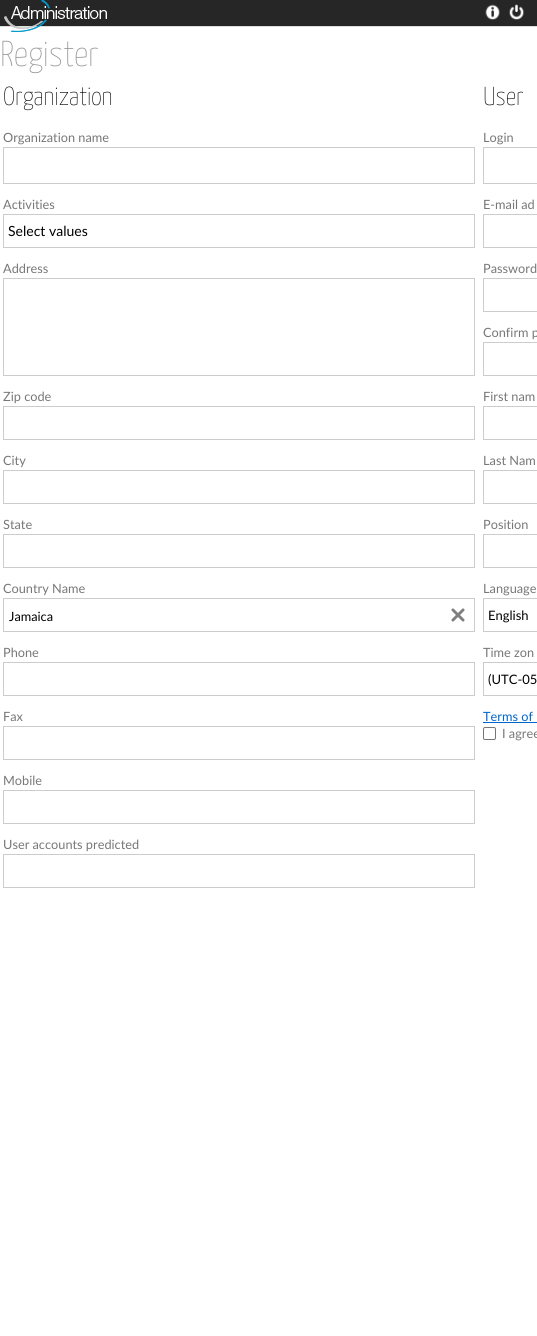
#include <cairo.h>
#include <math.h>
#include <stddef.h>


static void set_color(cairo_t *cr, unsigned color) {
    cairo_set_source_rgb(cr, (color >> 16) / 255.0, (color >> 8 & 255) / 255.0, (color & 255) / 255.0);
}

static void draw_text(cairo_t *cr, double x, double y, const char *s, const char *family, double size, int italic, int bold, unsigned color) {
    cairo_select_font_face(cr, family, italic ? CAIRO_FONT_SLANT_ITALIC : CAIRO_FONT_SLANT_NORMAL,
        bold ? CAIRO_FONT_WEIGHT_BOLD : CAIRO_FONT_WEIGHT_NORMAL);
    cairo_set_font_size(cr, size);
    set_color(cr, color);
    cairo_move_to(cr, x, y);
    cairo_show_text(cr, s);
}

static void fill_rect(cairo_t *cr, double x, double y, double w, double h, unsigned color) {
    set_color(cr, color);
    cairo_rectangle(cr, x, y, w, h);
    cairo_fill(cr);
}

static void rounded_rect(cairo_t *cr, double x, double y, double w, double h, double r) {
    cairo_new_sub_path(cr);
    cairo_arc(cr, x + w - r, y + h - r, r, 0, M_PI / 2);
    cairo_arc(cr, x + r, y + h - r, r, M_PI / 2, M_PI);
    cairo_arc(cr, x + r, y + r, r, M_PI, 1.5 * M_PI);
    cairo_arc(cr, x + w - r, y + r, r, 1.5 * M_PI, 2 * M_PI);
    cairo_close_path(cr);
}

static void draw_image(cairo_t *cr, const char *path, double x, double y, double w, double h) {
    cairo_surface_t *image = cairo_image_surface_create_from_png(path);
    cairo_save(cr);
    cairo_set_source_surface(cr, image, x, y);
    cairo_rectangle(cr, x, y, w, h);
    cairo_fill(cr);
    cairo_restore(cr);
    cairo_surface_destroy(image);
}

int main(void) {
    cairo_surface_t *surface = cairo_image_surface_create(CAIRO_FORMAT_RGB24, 537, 1336);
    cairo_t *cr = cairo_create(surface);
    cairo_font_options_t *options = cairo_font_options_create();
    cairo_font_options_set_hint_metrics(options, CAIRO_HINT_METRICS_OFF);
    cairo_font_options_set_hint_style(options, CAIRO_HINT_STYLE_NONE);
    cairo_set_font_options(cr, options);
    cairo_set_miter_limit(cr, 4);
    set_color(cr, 0xFFFFFF);
    cairo_paint(cr);
    fill_rect(cr, 0, 0, 537, 26, 0x262626);
    fill_rect(cr, 0, 26, 537, 1, 0xDEDEDE);
    draw_image(cr, "assets/img1.png", 4, 0, 103, 32);
    draw_image(cr, "assets/img2.png", 485, 4, 15, 16);
    draw_image(cr, "assets/img3.png", 509, 4, 15, 16);
    draw_text(cr, 0, 66, "Register", "Yanone Kaffeesatz ExtraLight", 36, 0, 0, 0x989898);
    draw_text(cr, 3, 105, "Organization", "Yanone Kaffeesatz ExtraLight", 26, 0, 0, 0x000000);
    draw_text(cr, 3, 142, "Organization name", "Lato", 12.75, 0, 0, 0x777777);
    cairo_rectangle(cr, 3.5, 147.5, 471, 36);
    set_color(cr, 0xCCCCCC);
    cairo_set_line_width(cr, 1);
    cairo_stroke(cr);
    draw_text(cr, 3, 209, "Activities", "Lato", 12.75, 0, 0, 0x777777);
    cairo_rectangle(cr, 3.5, 214.5, 471, 33);
    set_color(cr, 0xCCCCCC);
    cairo_stroke(cr);
    draw_text(cr, 8, 236, "Select values", "Lato", 14, 0, 0, 0x000000);
    draw_text(cr, 3, 273, "Address", "Lato", 12.75, 0, 0, 0x777777);
    cairo_rectangle(cr, 3.5, 278.5, 471, 97);
    set_color(cr, 0xCCCCCC);
    cairo_stroke(cr);
    draw_text(cr, 3, 401, "Zip code", "Lato", 12.75, 0, 0, 0x777777);
    cairo_rectangle(cr, 3.5, 406.5, 471, 33);
    set_color(cr, 0xCCCCCC);
    cairo_stroke(cr);
    draw_text(cr, 3, 465, "City", "Lato", 12.75, 0, 0, 0x777777);
    cairo_rectangle(cr, 3.5, 470.5, 471, 33);
    set_color(cr, 0xCCCCCC);
    cairo_stroke(cr);
    draw_text(cr, 3, 529, "State", "Lato", 12.75, 0, 0, 0x777777);
    cairo_rectangle(cr, 3.5, 534.5, 471, 33);
    set_color(cr, 0xCCCCCC);
    cairo_stroke(cr);
    draw_text(cr, 3, 593, "Country Name", "Lato", 12.75, 0, 0, 0x777777);
    cairo_rectangle(cr, 3.5, 598.5, 471, 33);
    set_color(cr, 0xCCCCCC);
    cairo_stroke(cr);
    draw_text(cr, 9, 621, "Jamaica", "Lato", 12.75, 0, 0, 0x000000);
    draw_image(cr, "assets/img4.png", 451, 608, 14, 14);
    draw_text(cr, 3, 657, "Phone", "Lato", 12.75, 0, 0, 0x777777);
    cairo_rectangle(cr, 3.5, 662.5, 471, 33);
    set_color(cr, 0xCCCCCC);
    cairo_stroke(cr);
    draw_text(cr, 3, 721, "Fax", "Lato", 12.75, 0, 0, 0x777777);
    cairo_rectangle(cr, 3.5, 726.5, 471, 33);
    set_color(cr, 0xCCCCCC);
    cairo_stroke(cr);
    draw_text(cr, 3, 785, "Mobile", "Lato", 12.75, 0, 0, 0x777777);
    cairo_rectangle(cr, 3.5, 790.5, 471, 33);
    set_color(cr, 0xCCCCCC);
    cairo_stroke(cr);
    draw_text(cr, 3, 849, "User accounts predicted", "Lato", 12.75, 0, 0, 0x777777);
    cairo_rectangle(cr, 3.5, 854.5, 471, 33);
    set_color(cr, 0xCCCCCC);
    cairo_stroke(cr);
    draw_text(cr, 483, 105, "User", "Yanone Kaffeesatz ExtraLight", 26, 0, 0, 0x000000);
    draw_text(cr, 483, 142, "Login", "Lato", 12.75, 0, 0, 0x777777);
    cairo_rectangle(cr, 483.5, 147.5, 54, 36);
    set_color(cr, 0xCCCCCC);
    cairo_stroke(cr);
    draw_text(cr, 483, 209, "E-mail ad", "Lato", 12.75, 0, 0, 0x777777);
    cairo_rectangle(cr, 483.5, 214.5, 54, 33);
    set_color(cr, 0xCCCCCC);
    cairo_stroke(cr);
    draw_text(cr, 483, 273, "Password", "Lato", 12.75, 0, 0, 0x777777);
    cairo_rectangle(cr, 483.5, 278.5, 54, 33);
    set_color(cr, 0xCCCCCC);
    cairo_stroke(cr);
    draw_text(cr, 483, 337, "Confirm p", "Lato", 12.75, 0, 0, 0x777777);
    cairo_rectangle(cr, 483.5, 342.5, 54, 33);
    set_color(cr, 0xCCCCCC);
    cairo_stroke(cr);
    draw_text(cr, 483, 401, "First nam", "Lato", 12.75, 0, 0, 0x777777);
    cairo_rectangle(cr, 483.5, 406.5, 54, 33);
    set_color(cr, 0xCCCCCC);
    cairo_stroke(cr);
    draw_text(cr, 483, 465, "Last Nam", "Lato", 12.75, 0, 0, 0x777777);
    cairo_rectangle(cr, 483.5, 470.5, 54, 33);
    set_color(cr, 0xCCCCCC);
    cairo_stroke(cr);
    draw_text(cr, 483, 529, "Position", "Lato", 12.75, 0, 0, 0x777777);
    cairo_rectangle(cr, 483.5, 534.5, 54, 33);
    set_color(cr, 0xCCCCCC);
    cairo_stroke(cr);
    draw_text(cr, 483, 593, "Language", "Lato", 12.75, 0, 0, 0x777777);
    cairo_rectangle(cr, 483.5, 598.5, 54, 33);
    set_color(cr, 0xCCCCCC);
    cairo_stroke(cr);
    draw_text(cr, 488, 620, "English", "Lato", 13, 0, 0, 0x000000);
    draw_text(cr, 483, 657, "Time zon", "Lato", 12.75, 0, 0, 0x777777);
    cairo_rectangle(cr, 483.5, 662.5, 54, 33);
    set_color(cr, 0xCCCCCC);
    cairo_stroke(cr);
    draw_text(cr, 488, 684, "(UTC-05", "Lato", 13, 0, 0, 0x000000);
    draw_text(cr, 483, 721, "Terms of", "Lato", 12.75, 0, 0, 0x0066CC);
    fill_rect(cr, 483, 722, 54, 1, 0x0066CC);
    rounded_rect(cr, 483.5, 727.5, 12, 12, 1.5);
    set_color(cr, 0x767676);
    cairo_stroke(cr);
    draw_text(cr, 502, 738, "I agree", "Lato", 12.75, 0, 0, 0x777777);
    cairo_surface_write_to_png(surface, "output.png");
    cairo_font_options_destroy(options);
    cairo_destroy(cr);
    cairo_surface_destroy(surface);
    return 0;
}
